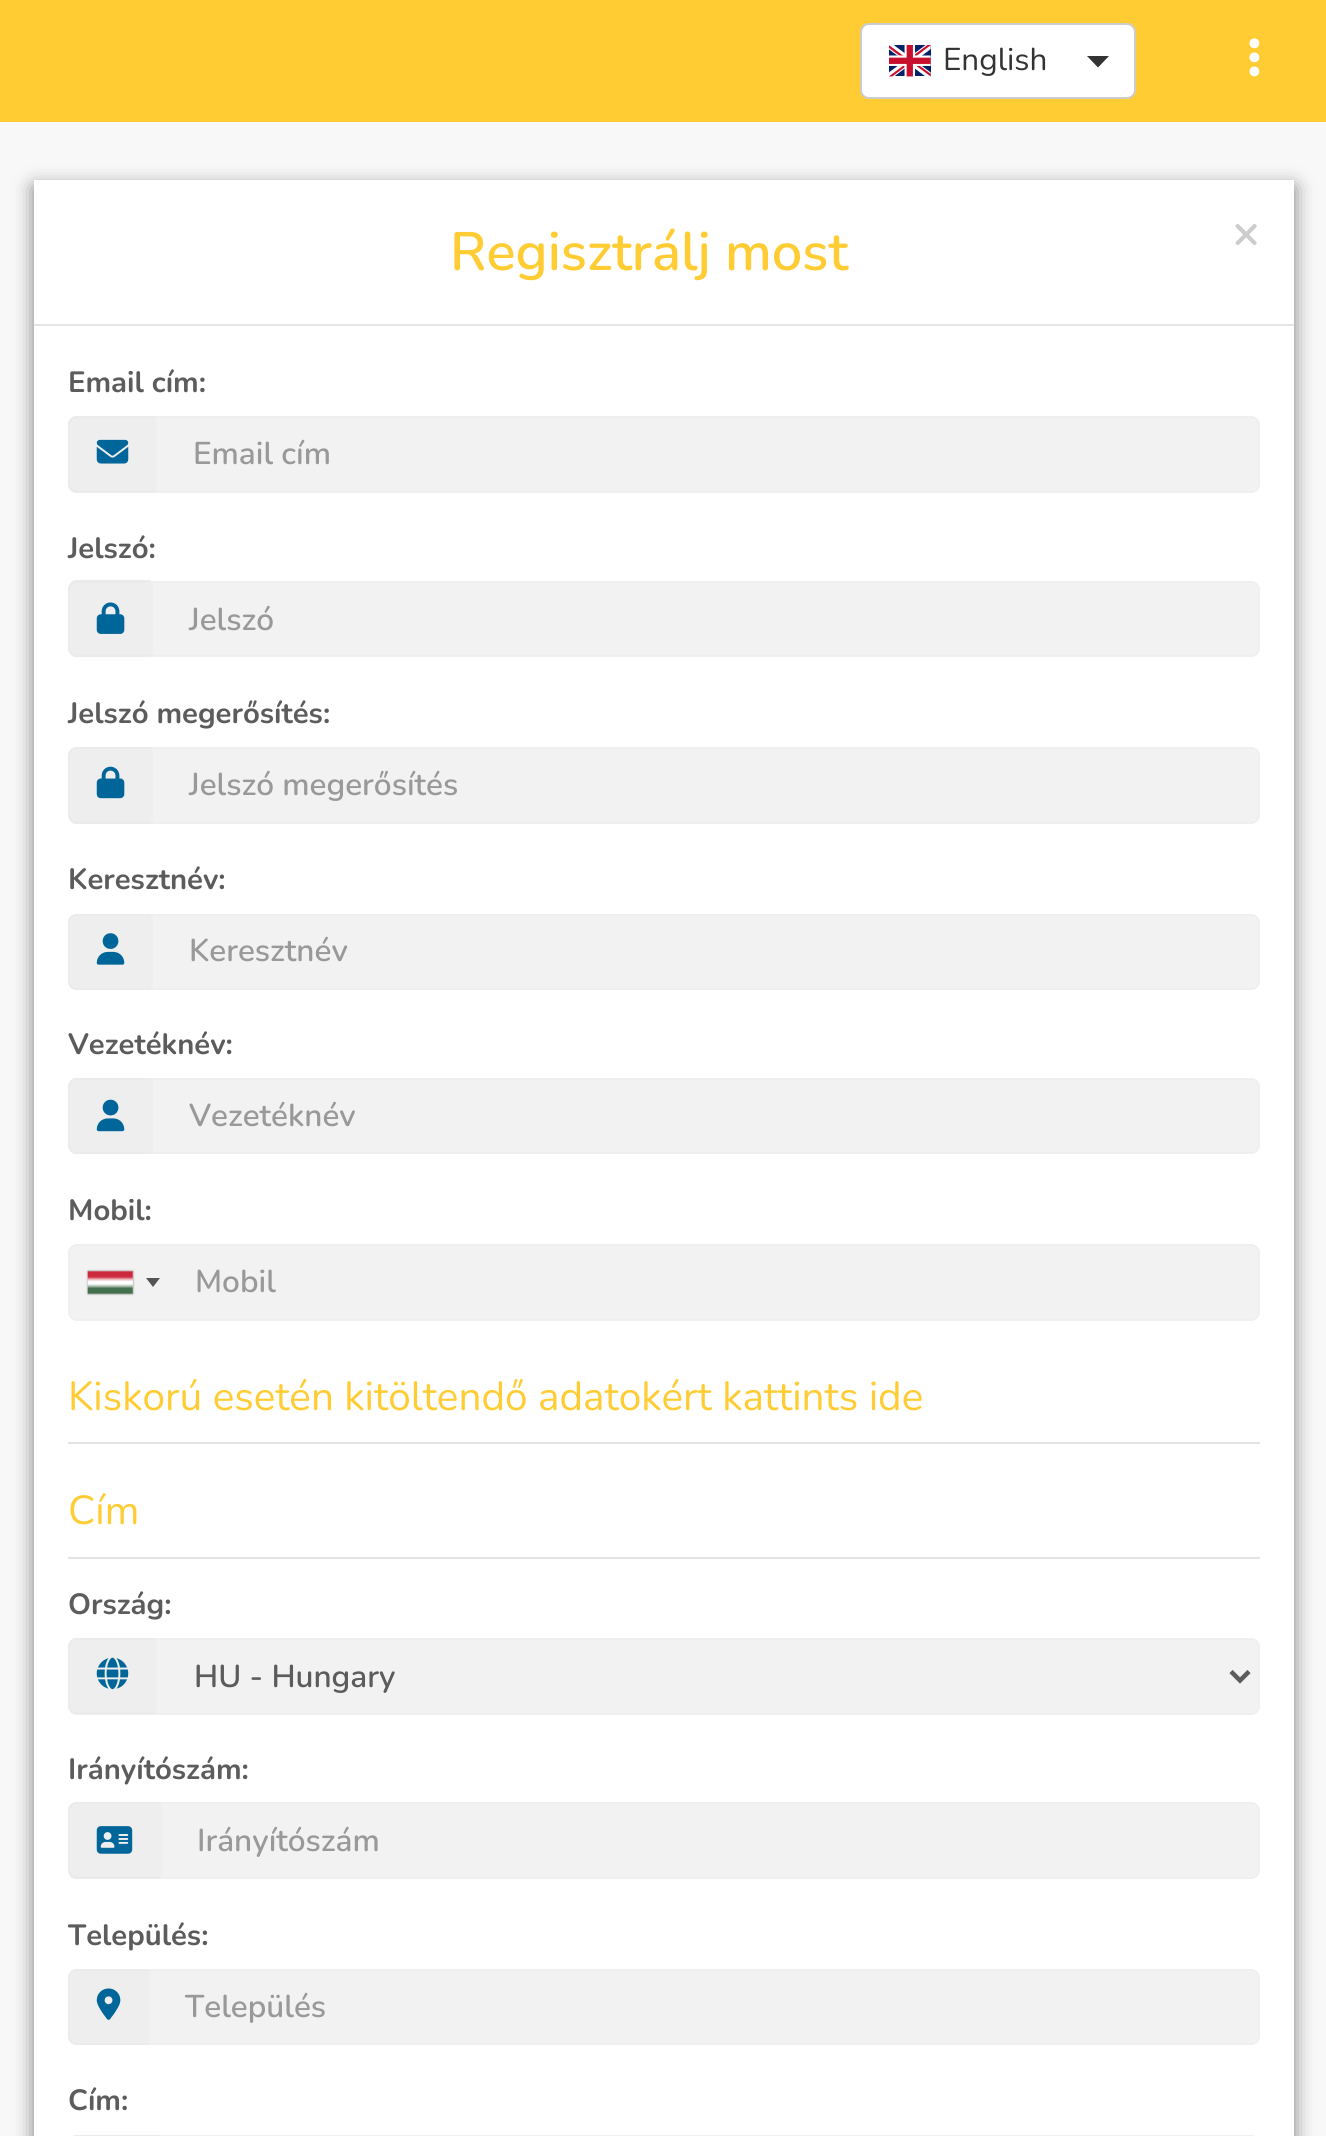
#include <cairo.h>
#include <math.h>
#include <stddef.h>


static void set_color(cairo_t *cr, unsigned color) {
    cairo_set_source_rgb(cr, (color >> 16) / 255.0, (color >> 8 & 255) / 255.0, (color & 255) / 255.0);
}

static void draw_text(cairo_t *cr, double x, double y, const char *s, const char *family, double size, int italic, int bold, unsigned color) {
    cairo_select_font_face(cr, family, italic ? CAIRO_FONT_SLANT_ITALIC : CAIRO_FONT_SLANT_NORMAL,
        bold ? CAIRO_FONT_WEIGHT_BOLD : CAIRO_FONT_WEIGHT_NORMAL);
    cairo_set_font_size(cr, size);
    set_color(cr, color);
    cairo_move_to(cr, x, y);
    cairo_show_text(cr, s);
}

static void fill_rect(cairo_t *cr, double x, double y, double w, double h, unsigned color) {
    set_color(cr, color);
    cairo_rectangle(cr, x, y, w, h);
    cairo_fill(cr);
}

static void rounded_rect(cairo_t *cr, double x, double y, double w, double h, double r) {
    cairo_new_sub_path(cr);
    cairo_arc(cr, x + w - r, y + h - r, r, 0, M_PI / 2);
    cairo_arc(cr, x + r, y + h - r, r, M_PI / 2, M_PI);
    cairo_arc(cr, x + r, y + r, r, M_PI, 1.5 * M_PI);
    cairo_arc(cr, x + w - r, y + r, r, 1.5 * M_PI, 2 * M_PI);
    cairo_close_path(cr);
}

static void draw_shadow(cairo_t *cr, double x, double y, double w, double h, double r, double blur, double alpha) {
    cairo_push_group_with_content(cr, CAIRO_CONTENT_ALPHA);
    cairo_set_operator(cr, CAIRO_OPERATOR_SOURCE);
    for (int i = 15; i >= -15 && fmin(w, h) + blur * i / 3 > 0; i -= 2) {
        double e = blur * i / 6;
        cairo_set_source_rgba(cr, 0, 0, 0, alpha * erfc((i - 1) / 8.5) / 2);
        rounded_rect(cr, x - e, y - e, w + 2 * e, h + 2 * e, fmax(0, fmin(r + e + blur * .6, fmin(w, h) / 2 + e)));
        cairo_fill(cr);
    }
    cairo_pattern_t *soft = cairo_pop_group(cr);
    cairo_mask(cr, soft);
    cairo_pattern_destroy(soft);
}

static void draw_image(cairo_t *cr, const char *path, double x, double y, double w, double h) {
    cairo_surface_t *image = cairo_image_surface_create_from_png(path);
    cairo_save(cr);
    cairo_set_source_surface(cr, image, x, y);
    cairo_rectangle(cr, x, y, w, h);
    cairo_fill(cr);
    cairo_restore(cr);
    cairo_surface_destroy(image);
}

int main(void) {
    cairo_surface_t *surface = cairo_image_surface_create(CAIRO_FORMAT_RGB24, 1326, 2136);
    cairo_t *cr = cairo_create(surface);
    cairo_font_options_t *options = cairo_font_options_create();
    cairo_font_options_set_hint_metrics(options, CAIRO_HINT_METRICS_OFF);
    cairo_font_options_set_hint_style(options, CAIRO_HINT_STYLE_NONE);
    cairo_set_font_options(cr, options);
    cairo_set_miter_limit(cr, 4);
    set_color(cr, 0xF8F8F8);
    cairo_paint(cr);
    fill_rect(cr, 0, 0, 1326, 122, 0xFFCC33);
    set_color(cr, 0xFFFFFF);
    rounded_rect(cr, 861, 24, 274, 74, 8);
    cairo_fill_preserve(cr);
    set_color(cr, 0xCCCCCC);
    cairo_stroke(cr);
    draw_image(cr, "assets/img1.png", 889, 45, 42, 32);
    draw_text(cr, 943, 70, "English", "Nunito", 31.5, 0, 0, 0x333333);
    cairo_new_path(cr);
    cairo_move_to(cr, 1087, 56);
    cairo_line_to(cr, 1109, 56);
    cairo_line_to(cr, 1098, 67.5);
    cairo_close_path(cr);
    cairo_fill(cr);
    draw_image(cr, "assets/img2.png", 1249, 38, 11, 39);
    set_color(cr, 0x000000);
    draw_shadow(cr, 34, 187, 1260, 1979, 0, 10, 0.5);
    fill_rect(cr, 34, 180, 1260, 1956, 0xFFFFFF);
    fill_rect(cr, 34, 324, 1260, 2, 0xE5E5E5);
    draw_text(cr, 450, 270, "Regisztrálj most", "Nunito SemiBold", 54, 0, 0, 0xFFCC33);
    draw_text(cr, 1232, 248, "×", "Nunito", 47, 0, 1, 0xCCCCCC);
    draw_text(cr, 68, 392, "Email cím:", "Nunito", 29.25, 0, 1, 0x5C5C5C);
    set_color(cr, 0xEEEEEE);
    cairo_new_path(cr);
    cairo_move_to(cr, 77, 416);
    cairo_line_to(cr, 155, 416);
    cairo_line_to(cr, 155, 493);
    cairo_line_to(cr, 77, 493);
    cairo_curve_to(cr, 72, 493, 68, 489, 68, 484);
    cairo_line_to(cr, 68, 425);
    cairo_curve_to(cr, 68, 420, 72, 416, 77, 416);
    cairo_close_path(cr);
    cairo_fill(cr);
    set_color(cr, 0xEAEBED);
    cairo_set_fill_rule(cr, CAIRO_FILL_RULE_EVEN_ODD);
    cairo_new_path(cr);
    cairo_move_to(cr, 76, 416);
    cairo_line_to(cr, 155, 416);
    cairo_line_to(cr, 155, 493);
    cairo_line_to(cr, 76, 493);
    cairo_curve_to(cr, 72, 493, 68, 489, 68, 484);
    cairo_line_to(cr, 68, 425);
    cairo_curve_to(cr, 68, 420, 72, 416, 76, 416);
    cairo_close_path(cr);
    cairo_move_to(cr, 76, 418);
    cairo_line_to(cr, 155, 418);
    cairo_line_to(cr, 155, 490);
    cairo_line_to(cr, 76, 490);
    cairo_curve_to(cr, 73, 490, 70, 487, 70, 484);
    cairo_line_to(cr, 70, 425);
    cairo_curve_to(cr, 70, 422, 73, 418, 76, 418);
    cairo_close_path(cr);
    cairo_fill(cr);
    draw_image(cr, "assets/img3.png", 96, 439, 33, 25);
    set_color(cr, 0xF3F2F2);
    cairo_new_path(cr);
    cairo_move_to(cr, 156, 417);
    cairo_line_to(cr, 1251, 417);
    cairo_curve_to(cr, 1255.5, 417, 1259, 420.5, 1259, 425);
    cairo_line_to(cr, 1259, 484);
    cairo_curve_to(cr, 1259, 488.5, 1255.5, 492, 1251, 492);
    cairo_line_to(cr, 156, 492);
    cairo_close_path(cr);
    cairo_fill_preserve(cr);
    set_color(cr, 0xEFEFEF);
    cairo_stroke(cr);
    draw_text(cr, 193, 464, "Email cím", "Nunito SemiBold", 31.5, 0, 0, 0x999999);
    draw_text(cr, 68, 558, "Jelszó:", "Nunito", 29.25, 0, 1, 0x5C5C5C);
    set_color(cr, 0xEEEEEE);
    cairo_new_path(cr);
    cairo_move_to(cr, 77, 581);
    cairo_line_to(cr, 151, 581);
    cairo_line_to(cr, 151, 657);
    cairo_line_to(cr, 77, 657);
    cairo_curve_to(cr, 72, 657, 68, 653, 68, 648);
    cairo_line_to(cr, 68, 590);
    cairo_curve_to(cr, 68, 585, 72, 581, 77, 581);
    cairo_close_path(cr);
    cairo_fill(cr);
    set_color(cr, 0xEAEBED);
    cairo_new_path(cr);
    cairo_move_to(cr, 76, 580);
    cairo_line_to(cr, 151, 580);
    cairo_line_to(cr, 151, 657);
    cairo_line_to(cr, 76, 657);
    cairo_curve_to(cr, 72, 657, 68, 653, 68, 648);
    cairo_line_to(cr, 68, 590);
    cairo_curve_to(cr, 68, 585, 72, 580, 76, 580);
    cairo_close_path(cr);
    cairo_move_to(cr, 76, 583);
    cairo_line_to(cr, 151, 583);
    cairo_line_to(cr, 151, 655);
    cairo_line_to(cr, 76, 655);
    cairo_curve_to(cr, 73, 655, 70, 652, 70, 648);
    cairo_line_to(cr, 70, 590);
    cairo_curve_to(cr, 70, 586, 73, 583, 76, 583);
    cairo_close_path(cr);
    cairo_fill(cr);
    draw_image(cr, "assets/img4.png", 96, 602, 29, 32);
    set_color(cr, 0xF3F2F2);
    cairo_new_path(cr);
    cairo_move_to(cr, 152, 582);
    cairo_line_to(cr, 1251, 582);
    cairo_curve_to(cr, 1255.5, 582, 1259, 585.5, 1259, 590);
    cairo_line_to(cr, 1259, 648);
    cairo_curve_to(cr, 1259, 652.5, 1255.5, 656, 1251, 656);
    cairo_line_to(cr, 152, 656);
    cairo_close_path(cr);
    cairo_fill_preserve(cr);
    set_color(cr, 0xEFEFEF);
    cairo_stroke(cr);
    draw_text(cr, 189, 630, "Jelszó", "Nunito SemiBold", 31.5, 0, 0, 0x999999);
    draw_text(cr, 68, 723, "Jelszó megerősítés:", "Nunito", 29.25, 0, 1, 0x5C5C5C);
    set_color(cr, 0xEEEEEE);
    cairo_new_path(cr);
    cairo_move_to(cr, 77, 747);
    cairo_line_to(cr, 151, 747);
    cairo_line_to(cr, 151, 824);
    cairo_line_to(cr, 77, 824);
    cairo_curve_to(cr, 72, 824, 68, 820, 68, 815);
    cairo_line_to(cr, 68, 756);
    cairo_curve_to(cr, 68, 751, 72, 747, 77, 747);
    cairo_close_path(cr);
    cairo_fill(cr);
    set_color(cr, 0xEAEBED);
    cairo_new_path(cr);
    cairo_move_to(cr, 76, 747);
    cairo_line_to(cr, 151, 747);
    cairo_line_to(cr, 151, 824);
    cairo_line_to(cr, 76, 824);
    cairo_curve_to(cr, 72, 824, 68, 819, 68, 814);
    cairo_line_to(cr, 68, 756);
    cairo_curve_to(cr, 68, 751, 72, 747, 76, 747);
    cairo_close_path(cr);
    cairo_move_to(cr, 76, 749);
    cairo_line_to(cr, 151, 749);
    cairo_line_to(cr, 151, 821);
    cairo_line_to(cr, 76, 821);
    cairo_curve_to(cr, 73, 821, 70, 818, 70, 814);
    cairo_line_to(cr, 70, 756);
    cairo_curve_to(cr, 70, 752, 73, 749, 76, 749);
    cairo_close_path(cr);
    cairo_fill(cr);
    draw_image(cr, "assets/img5.png", 96, 766, 29, 33);
    set_color(cr, 0xF3F2F2);
    cairo_new_path(cr);
    cairo_move_to(cr, 152, 748);
    cairo_line_to(cr, 1251, 748);
    cairo_curve_to(cr, 1255.5, 748, 1259, 751.5, 1259, 756);
    cairo_line_to(cr, 1259, 815);
    cairo_curve_to(cr, 1259, 819.5, 1255.5, 823, 1251, 823);
    cairo_line_to(cr, 152, 823);
    cairo_close_path(cr);
    cairo_fill_preserve(cr);
    set_color(cr, 0xEFEFEF);
    cairo_stroke(cr);
    draw_text(cr, 189, 795, "Jelszó megerősítés", "Nunito SemiBold", 31.5, 0, 0, 0x999999);
    draw_text(cr, 68, 889, "Keresztnév:", "Nunito", 29.25, 0, 1, 0x5C5C5C);
    set_color(cr, 0xEEEEEE);
    cairo_new_path(cr);
    cairo_move_to(cr, 77, 914);
    cairo_line_to(cr, 151, 914);
    cairo_line_to(cr, 151, 990);
    cairo_line_to(cr, 77, 990);
    cairo_curve_to(cr, 72, 990, 68, 986, 68, 981);
    cairo_line_to(cr, 68, 923);
    cairo_curve_to(cr, 68, 918, 72, 914, 77, 914);
    cairo_close_path(cr);
    cairo_fill(cr);
    set_color(cr, 0xEAEBED);
    cairo_new_path(cr);
    cairo_move_to(cr, 76, 914);
    cairo_line_to(cr, 151, 914);
    cairo_line_to(cr, 151, 990);
    cairo_line_to(cr, 76, 990);
    cairo_curve_to(cr, 72, 990, 68, 986, 68, 981);
    cairo_line_to(cr, 68, 922);
    cairo_curve_to(cr, 68, 918, 72, 914, 76, 914);
    cairo_close_path(cr);
    cairo_move_to(cr, 76, 916);
    cairo_line_to(cr, 151, 916);
    cairo_line_to(cr, 151, 988);
    cairo_line_to(cr, 76, 988);
    cairo_curve_to(cr, 73, 988, 70, 985, 70, 981);
    cairo_line_to(cr, 70, 922);
    cairo_curve_to(cr, 70, 919, 73, 916, 76, 916);
    cairo_close_path(cr);
    cairo_fill(cr);
    draw_image(cr, "assets/img6.png", 96, 933, 29, 32);
    set_color(cr, 0xF3F2F2);
    cairo_new_path(cr);
    cairo_move_to(cr, 152, 915);
    cairo_line_to(cr, 1251, 915);
    cairo_curve_to(cr, 1255.5, 915, 1259, 918.5, 1259, 923);
    cairo_line_to(cr, 1259, 981);
    cairo_curve_to(cr, 1259, 985.5, 1255.5, 989, 1251, 989);
    cairo_line_to(cr, 152, 989);
    cairo_close_path(cr);
    cairo_fill_preserve(cr);
    set_color(cr, 0xEFEFEF);
    cairo_stroke(cr);
    draw_text(cr, 189, 961, "Keresztnév", "Nunito SemiBold", 31.5, 0, 0, 0x999999);
    draw_text(cr, 68, 1054, "Vezetéknév:", "Nunito", 29.25, 0, 1, 0x5C5C5C);
    set_color(cr, 0xEEEEEE);
    cairo_new_path(cr);
    cairo_move_to(cr, 77, 1078);
    cairo_line_to(cr, 151, 1078);
    cairo_line_to(cr, 151, 1154);
    cairo_line_to(cr, 77, 1154);
    cairo_curve_to(cr, 72, 1154, 68, 1150, 68, 1145);
    cairo_line_to(cr, 68, 1087);
    cairo_curve_to(cr, 68, 1082, 72, 1078, 77, 1078);
    cairo_close_path(cr);
    cairo_fill(cr);
    set_color(cr, 0xEAEBED);
    cairo_new_path(cr);
    cairo_move_to(cr, 76, 1078);
    cairo_line_to(cr, 151, 1078);
    cairo_line_to(cr, 151, 1154);
    cairo_line_to(cr, 76, 1154);
    cairo_curve_to(cr, 72, 1154, 68, 1150, 68, 1145);
    cairo_line_to(cr, 68, 1087);
    cairo_curve_to(cr, 68, 1082, 72, 1078, 76, 1078);
    cairo_close_path(cr);
    cairo_move_to(cr, 76, 1080);
    cairo_line_to(cr, 151, 1080);
    cairo_line_to(cr, 151, 1152);
    cairo_line_to(cr, 76, 1152);
    cairo_curve_to(cr, 73, 1152, 70, 1149, 70, 1145);
    cairo_line_to(cr, 70, 1087);
    cairo_curve_to(cr, 70, 1083, 73, 1080, 76, 1080);
    cairo_close_path(cr);
    cairo_fill(cr);
    draw_image(cr, "assets/img7.png", 96, 1099, 29, 33);
    set_color(cr, 0xF3F2F2);
    cairo_new_path(cr);
    cairo_move_to(cr, 152, 1079);
    cairo_line_to(cr, 1251, 1079);
    cairo_curve_to(cr, 1255.5, 1079, 1259, 1082.5, 1259, 1087);
    cairo_line_to(cr, 1259, 1145);
    cairo_curve_to(cr, 1259, 1149.5, 1255.5, 1153, 1251, 1153);
    cairo_line_to(cr, 152, 1153);
    cairo_close_path(cr);
    cairo_fill_preserve(cr);
    set_color(cr, 0xEFEFEF);
    cairo_stroke(cr);
    draw_text(cr, 189, 1126, "Vezetéknév", "Nunito SemiBold", 31.5, 0, 0, 0x999999);
    draw_text(cr, 68, 1220, "Mobil:", "Nunito", 29.25, 0, 1, 0x5C5C5C);
    set_color(cr, 0xF3F2F2);
    rounded_rect(cr, 69, 1245, 1190, 75, 8);
    cairo_fill_preserve(cr);
    set_color(cr, 0xEFEFEF);
    cairo_stroke(cr);
    set_color(cr, 0x888888);
    draw_shadow(cr, 88, 1271, 45, 23, 0, 1, 1);
    fill_rect(cr, 88, 1271, 45, 23, 0xDBDBDB);
    draw_image(cr, "assets/img8.png", 87, 1271, 46, 23);
    set_color(cr, 0x555555);
    cairo_set_fill_rule(cr, CAIRO_FILL_RULE_WINDING);
    cairo_new_path(cr);
    cairo_move_to(cr, 146, 1278);
    cairo_line_to(cr, 160, 1278);
    cairo_line_to(cr, 153, 1287);
    cairo_close_path(cr);
    cairo_fill(cr);
    draw_text(cr, 195, 1292, "Mobil", "Nunito SemiBold", 31.5, 0, 0, 0x999999);
    fill_rect(cr, 68, 1442, 1192, 2, 0xE4E4E4);
    draw_text(cr, 68, 1410, "Kiskorú esetén kitöltendő adatokért kattints ide", "Nunito", 40.5, 0, 0, 0xFFCC33);
    fill_rect(cr, 68, 1557, 1192, 2, 0xE4E4E4);
    draw_text(cr, 68, 1524, "Cím", "Nunito", 40.5, 0, 0, 0xFFCC33);
    draw_text(cr, 68, 1614, "Ország:", "Nunito", 29.25, 0, 1, 0x5C5C5C);
    set_color(cr, 0xEEEEEE);
    cairo_new_path(cr);
    cairo_move_to(cr, 77, 1638);
    cairo_line_to(cr, 155, 1638);
    cairo_line_to(cr, 155, 1715);
    cairo_line_to(cr, 77, 1715);
    cairo_curve_to(cr, 72, 1715, 68, 1711, 68, 1706);
    cairo_line_to(cr, 68, 1647);
    cairo_curve_to(cr, 68, 1642, 72, 1638, 77, 1638);
    cairo_close_path(cr);
    cairo_fill(cr);
    set_color(cr, 0xEAEBED);
    cairo_set_fill_rule(cr, CAIRO_FILL_RULE_EVEN_ODD);
    cairo_new_path(cr);
    cairo_move_to(cr, 76, 1638);
    cairo_line_to(cr, 155, 1638);
    cairo_line_to(cr, 155, 1714);
    cairo_line_to(cr, 76, 1714);
    cairo_curve_to(cr, 72, 1714, 68, 1710, 68, 1706);
    cairo_line_to(cr, 68, 1647);
    cairo_curve_to(cr, 68, 1642, 72, 1638, 76, 1638);
    cairo_close_path(cr);
    cairo_move_to(cr, 76, 1640);
    cairo_line_to(cr, 155, 1640);
    cairo_line_to(cr, 155, 1712);
    cairo_line_to(cr, 76, 1712);
    cairo_curve_to(cr, 73, 1712, 70, 1709, 70, 1706);
    cairo_line_to(cr, 70, 1647);
    cairo_curve_to(cr, 70, 1643, 73, 1640, 76, 1640);
    cairo_close_path(cr);
    cairo_fill(cr);
    draw_image(cr, "assets/img9.png", 96, 1657, 33, 33);
    set_color(cr, 0xF3F2F2);
    cairo_new_path(cr);
    cairo_move_to(cr, 156, 1639);
    cairo_line_to(cr, 1251, 1639);
    cairo_curve_to(cr, 1255.5, 1639, 1259, 1642.5, 1259, 1647);
    cairo_line_to(cr, 1259, 1706);
    cairo_curve_to(cr, 1259, 1710.5, 1255.5, 1714, 1251, 1714);
    cairo_line_to(cr, 156, 1714);
    cairo_close_path(cr);
    cairo_fill_preserve(cr);
    set_color(cr, 0xEFEFEF);
    cairo_stroke(cr);
    cairo_new_path(cr);
    cairo_move_to(cr, 1231, 1671.5);
    cairo_line_to(cr, 1240, 1680.5);
    cairo_line_to(cr, 1249, 1671.5);
    set_color(cr, 0x5C5C5C);
    cairo_set_line_width(cr, 4.5);
    cairo_stroke(cr);
    draw_text(cr, 194, 1687, "HU - Hungary", "Nunito SemiBold", 31.5, 0, 0, 0x5C5C5C);
    draw_text(cr, 68, 1779, "Irányítószám:", "Nunito", 29.25, 0, 1, 0x5C5C5C);
    set_color(cr, 0xEEEEEE);
    cairo_new_path(cr);
    cairo_move_to(cr, 77, 1802);
    cairo_line_to(cr, 160, 1802);
    cairo_line_to(cr, 160, 1879);
    cairo_line_to(cr, 77, 1879);
    cairo_curve_to(cr, 72, 1879, 68, 1875, 68, 1870);
    cairo_line_to(cr, 68, 1811);
    cairo_curve_to(cr, 68, 1806, 72, 1802, 77, 1802);
    cairo_close_path(cr);
    cairo_fill(cr);
    set_color(cr, 0xEAEBED);
    cairo_new_path(cr);
    cairo_move_to(cr, 76, 1802);
    cairo_line_to(cr, 160, 1802);
    cairo_line_to(cr, 160, 1879);
    cairo_line_to(cr, 76, 1879);
    cairo_curve_to(cr, 72, 1879, 68, 1875, 68, 1870);
    cairo_line_to(cr, 68, 1811);
    cairo_curve_to(cr, 68, 1806, 72, 1802, 76, 1802);
    cairo_close_path(cr);
    cairo_move_to(cr, 76, 1804);
    cairo_line_to(cr, 160, 1804);
    cairo_line_to(cr, 160, 1876);
    cairo_line_to(cr, 76, 1876);
    cairo_curve_to(cr, 73, 1876, 70, 1873, 70, 1870);
    cairo_line_to(cr, 70, 1811);
    cairo_curve_to(cr, 70, 1808, 73, 1804, 76, 1804);
    cairo_close_path(cr);
    cairo_fill(cr);
    draw_image(cr, "assets/img10.png", 96, 1826, 37, 28);
    set_color(cr, 0xF3F2F2);
    cairo_new_path(cr);
    cairo_move_to(cr, 161, 1803);
    cairo_line_to(cr, 1251, 1803);
    cairo_curve_to(cr, 1255.5, 1803, 1259, 1806.5, 1259, 1811);
    cairo_line_to(cr, 1259, 1870);
    cairo_curve_to(cr, 1259, 1874.5, 1255.5, 1878, 1251, 1878);
    cairo_line_to(cr, 161, 1878);
    cairo_close_path(cr);
    cairo_fill_preserve(cr);
    set_color(cr, 0xEFEFEF);
    cairo_set_line_width(cr, 2);
    cairo_stroke(cr);
    draw_text(cr, 197, 1851, "Irányítószám", "Nunito SemiBold", 31.5, 0, 0, 0x999999);
    draw_text(cr, 68, 1945, "Település:", "Nunito", 29.25, 0, 1, 0x5C5C5C);
    set_color(cr, 0xEEEEEE);
    cairo_new_path(cr);
    cairo_move_to(cr, 77, 1969);
    cairo_line_to(cr, 149, 1969);
    cairo_line_to(cr, 149, 2045);
    cairo_line_to(cr, 77, 2045);
    cairo_curve_to(cr, 72, 2045, 68, 2041, 68, 2036);
    cairo_line_to(cr, 68, 1978);
    cairo_curve_to(cr, 68, 1973, 72, 1969, 77, 1969);
    cairo_close_path(cr);
    cairo_fill(cr);
    set_color(cr, 0xEAEBED);
    cairo_new_path(cr);
    cairo_move_to(cr, 76, 1969);
    cairo_line_to(cr, 148, 1969);
    cairo_line_to(cr, 148, 2045);
    cairo_line_to(cr, 76, 2045);
    cairo_curve_to(cr, 72, 2045, 68, 2041, 68, 2036);
    cairo_line_to(cr, 68, 1978);
    cairo_curve_to(cr, 68, 1973, 72, 1969, 76, 1969);
    cairo_close_path(cr);
    cairo_move_to(cr, 76, 1971);
    cairo_line_to(cr, 148, 1971);
    cairo_line_to(cr, 148, 2043);
    cairo_line_to(cr, 76, 2043);
    cairo_curve_to(cr, 73, 2043, 70, 2040, 70, 2036);
    cairo_line_to(cr, 70, 1978);
    cairo_curve_to(cr, 70, 1974, 73, 1971, 76, 1971);
    cairo_close_path(cr);
    cairo_fill(cr);
    draw_image(cr, "assets/img11.png", 96, 1988, 25, 32);
    set_color(cr, 0xF3F2F2);
    cairo_new_path(cr);
    cairo_move_to(cr, 150, 1970);
    cairo_line_to(cr, 1251, 1970);
    cairo_curve_to(cr, 1255.5, 1970, 1259, 1973.5, 1259, 1978);
    cairo_line_to(cr, 1259, 2036);
    cairo_curve_to(cr, 1259, 2040.5, 1255.5, 2044, 1251, 2044);
    cairo_line_to(cr, 150, 2044);
    cairo_close_path(cr);
    cairo_fill_preserve(cr);
    set_color(cr, 0xEFEFEF);
    cairo_stroke(cr);
    draw_text(cr, 185, 2017, "Település", "Nunito SemiBold", 31.5, 0, 0, 0x999999);
    draw_text(cr, 68, 2110, "Cím:", "Nunito", 29.25, 0, 1, 0x5C5C5C);
    set_color(cr, 0xEAEBED);
    cairo_new_path(cr);
    cairo_move_to(cr, 76, 2135);
    cairo_line_to(cr, 160, 2135);
    cairo_line_to(cr, 160, 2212);
    cairo_line_to(cr, 76, 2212);
    cairo_curve_to(cr, 72, 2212, 68, 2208, 68, 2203);
    cairo_line_to(cr, 68, 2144);
    cairo_curve_to(cr, 68, 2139, 72, 2135, 76, 2135);
    cairo_close_path(cr);
    cairo_move_to(cr, 76, 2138);
    cairo_line_to(cr, 160, 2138);
    cairo_line_to(cr, 160, 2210);
    cairo_line_to(cr, 76, 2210);
    cairo_curve_to(cr, 73, 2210, 70, 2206, 70, 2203);
    cairo_line_to(cr, 70, 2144);
    cairo_curve_to(cr, 70, 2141, 73, 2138, 76, 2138);
    cairo_close_path(cr);
    cairo_fill(cr);
    cairo_new_path(cr);
    cairo_move_to(cr, 161, 2136);
    cairo_line_to(cr, 1251, 2136);
    cairo_curve_to(cr, 1255.5, 2136, 1259, 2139.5, 1259, 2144);
    cairo_line_to(cr, 1259, 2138);
    cairo_curve_to(cr, 1259, 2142.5, 1255.5, 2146, 1251, 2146);
    cairo_line_to(cr, 161, 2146);
    cairo_close_path(cr);
    set_color(cr, 0xEFEFEF);
    cairo_stroke(cr);
    cairo_surface_write_to_png(surface, "output.png");
    cairo_font_options_destroy(options);
    cairo_destroy(cr);
    cairo_surface_destroy(surface);
    return 0;
}
